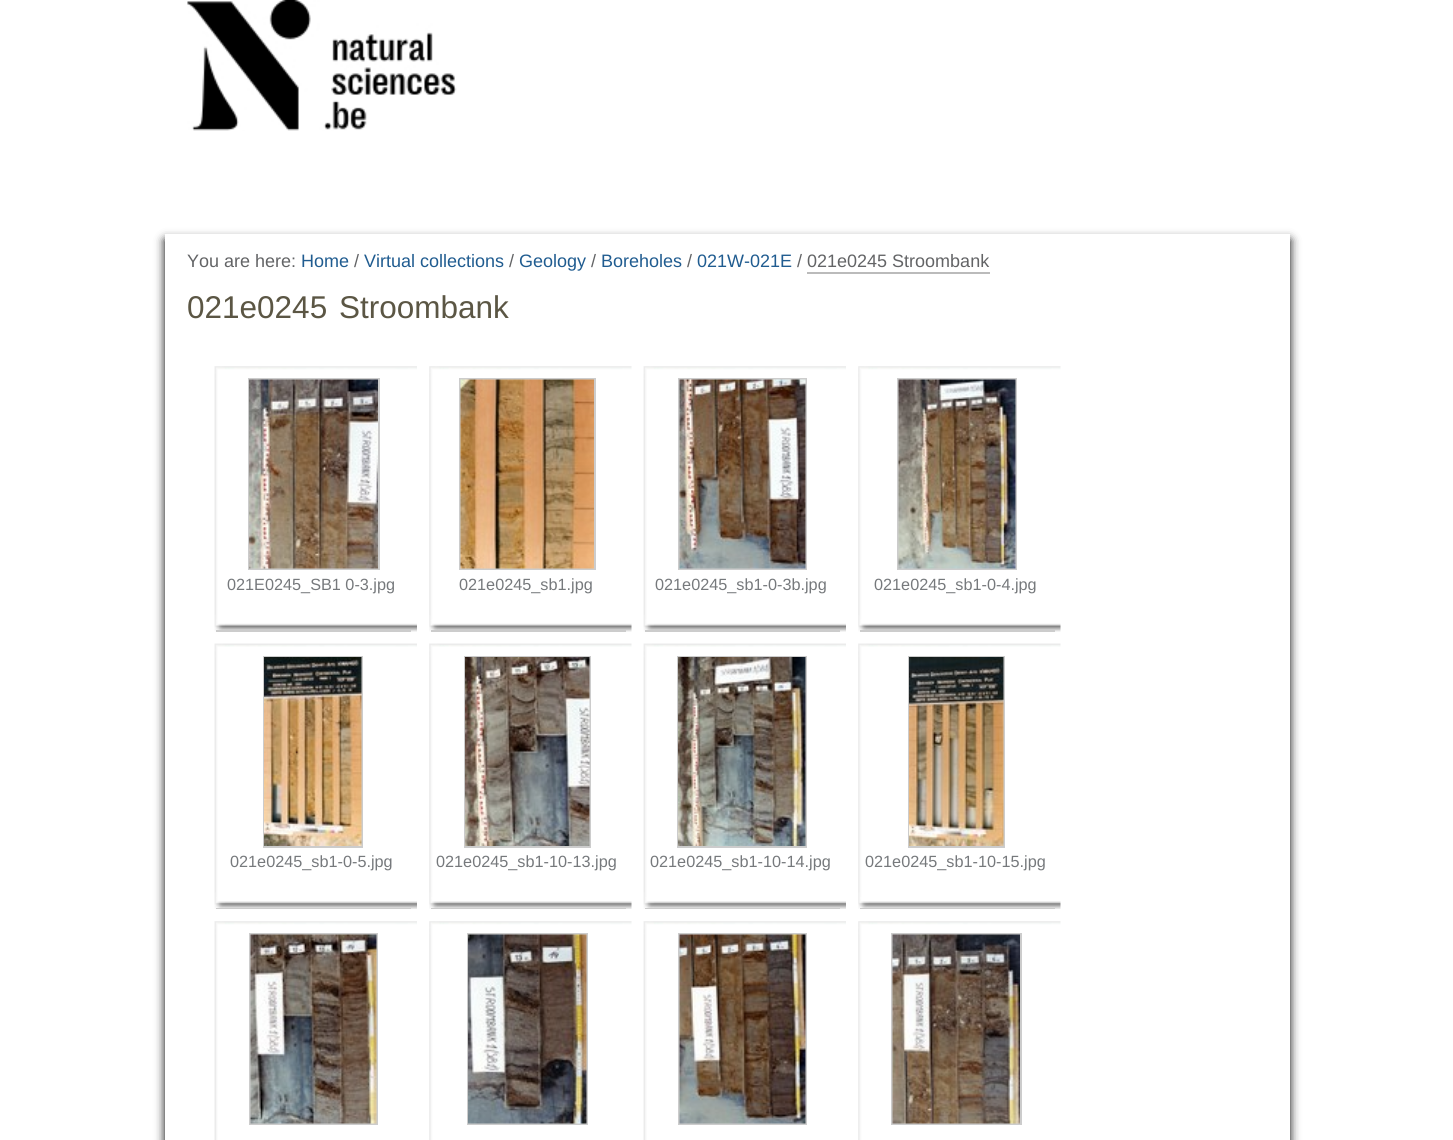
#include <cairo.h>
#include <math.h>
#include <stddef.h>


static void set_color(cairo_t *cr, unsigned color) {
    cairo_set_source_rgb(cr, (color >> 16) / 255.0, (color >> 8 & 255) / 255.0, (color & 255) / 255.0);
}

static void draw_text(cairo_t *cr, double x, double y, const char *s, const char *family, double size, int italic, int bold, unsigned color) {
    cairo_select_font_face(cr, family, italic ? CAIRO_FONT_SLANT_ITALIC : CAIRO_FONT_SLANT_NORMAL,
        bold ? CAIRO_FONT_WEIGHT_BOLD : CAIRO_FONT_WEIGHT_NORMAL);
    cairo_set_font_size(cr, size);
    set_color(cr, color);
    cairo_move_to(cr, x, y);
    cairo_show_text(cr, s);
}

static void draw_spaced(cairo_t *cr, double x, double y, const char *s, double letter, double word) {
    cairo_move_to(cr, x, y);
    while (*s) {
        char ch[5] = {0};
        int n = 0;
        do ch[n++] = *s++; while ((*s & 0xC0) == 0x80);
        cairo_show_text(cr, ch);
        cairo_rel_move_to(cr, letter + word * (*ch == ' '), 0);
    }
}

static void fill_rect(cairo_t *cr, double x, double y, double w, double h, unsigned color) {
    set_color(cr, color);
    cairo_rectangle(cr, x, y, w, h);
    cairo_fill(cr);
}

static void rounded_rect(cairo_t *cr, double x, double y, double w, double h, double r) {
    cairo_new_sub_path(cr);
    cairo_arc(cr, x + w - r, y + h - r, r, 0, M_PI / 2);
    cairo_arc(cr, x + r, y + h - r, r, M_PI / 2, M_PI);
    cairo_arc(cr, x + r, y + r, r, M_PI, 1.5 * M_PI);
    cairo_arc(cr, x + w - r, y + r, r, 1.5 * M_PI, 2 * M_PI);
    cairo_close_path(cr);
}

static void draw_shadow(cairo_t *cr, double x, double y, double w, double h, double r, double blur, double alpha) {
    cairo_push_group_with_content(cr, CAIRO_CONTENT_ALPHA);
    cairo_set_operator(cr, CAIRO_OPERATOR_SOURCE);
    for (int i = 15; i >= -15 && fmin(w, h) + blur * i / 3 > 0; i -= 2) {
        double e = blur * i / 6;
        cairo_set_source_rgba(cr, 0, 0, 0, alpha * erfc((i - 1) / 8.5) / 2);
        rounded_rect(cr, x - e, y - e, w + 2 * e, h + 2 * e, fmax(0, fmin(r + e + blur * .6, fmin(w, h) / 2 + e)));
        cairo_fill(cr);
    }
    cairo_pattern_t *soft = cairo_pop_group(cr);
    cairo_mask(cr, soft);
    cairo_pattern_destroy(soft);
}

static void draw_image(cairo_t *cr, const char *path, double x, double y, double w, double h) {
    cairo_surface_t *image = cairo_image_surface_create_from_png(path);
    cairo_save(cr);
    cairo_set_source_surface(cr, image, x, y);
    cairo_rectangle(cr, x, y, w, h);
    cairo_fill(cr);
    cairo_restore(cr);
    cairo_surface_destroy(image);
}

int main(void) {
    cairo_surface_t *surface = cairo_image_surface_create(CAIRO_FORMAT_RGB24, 1453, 1140);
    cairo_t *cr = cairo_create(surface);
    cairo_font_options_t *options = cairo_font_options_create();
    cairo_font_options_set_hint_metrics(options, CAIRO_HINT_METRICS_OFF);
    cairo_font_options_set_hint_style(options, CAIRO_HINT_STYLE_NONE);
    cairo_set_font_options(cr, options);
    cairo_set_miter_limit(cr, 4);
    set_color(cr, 0xFFFFFF);
    cairo_paint(cr);
    draw_image(cr, "assets/img1.png", 187, 0, 270, 131);
    cairo_save(cr);
    cairo_set_fill_rule(cr, CAIRO_FILL_RULE_EVEN_ODD);
    cairo_new_path(cr);
    cairo_move_to(cr, 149, 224);
    cairo_line_to(cr, 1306, 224);
    cairo_line_to(cr, 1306, 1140);
    cairo_line_to(cr, 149, 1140);
    cairo_close_path(cr);
    cairo_move_to(cr, 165, 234);
    cairo_line_to(cr, 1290, 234);
    cairo_line_to(cr, 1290, 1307);
    cairo_line_to(cr, 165, 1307);
    cairo_close_path(cr);
    cairo_clip(cr);
    set_color(cr, 0x000000);
    draw_shadow(cr, 165, 240, 1125, 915, 0, 5, 1);
    cairo_restore(cr);
    draw_text(cr, 187, 267, "You are here:", "Liberation Sans", 18, 0, 0, 0x636466);
    draw_text(cr, 301, 267, "Home", "Liberation Sans", 18, 0, 0, 0x205C90);
    draw_text(cr, 354, 267, "/", "Liberation Sans", 18, 0, 0, 0x636466);
    draw_text(cr, 364, 267, "Virtual collections", "Liberation Sans", 18, 0, 0, 0x205C90);
    draw_text(cr, 509, 267, "/", "Liberation Sans", 18, 0, 0, 0x636466);
    draw_text(cr, 519, 267, "Geology", "Liberation Sans", 18, 0, 0, 0x205C90);
    draw_text(cr, 591, 267, "/", "Liberation Sans", 18, 0, 0, 0x636466);
    draw_text(cr, 601, 267, "Boreholes", "Liberation Sans", 18, 0, 0, 0x205C90);
    draw_text(cr, 687, 267, "/", "Liberation Sans", 18, 0, 0, 0x636466);
    draw_text(cr, 697, 267, "021W-021E", "Liberation Sans", 18, 0, 0, 0x205C90);
    draw_text(cr, 797, 267, "/", "Liberation Sans", 18, 0, 0, 0x636466);
    draw_text(cr, 807, 267, "021e0245 Stroombank", "Liberation Sans", 18, 0, 0, 0x636466);
    fill_rect(cr, 807, 272, 183, 2, 0xBBBBBB);
    cairo_set_font_size(cr, 31.5);
    set_color(cr, 0x5B5644);
    draw_spaced(cr, 187, 318, "021e0245 Stroombank", 0, 3);
    draw_image(cr, "assets/img2.png", 214, 366, 203, 266);
    fill_rect(cr, 216, 630, 195, 2, 0xCCCCCC);
    cairo_rectangle(cr, 249, 379, 130, 190);
    cairo_stroke(cr);
    draw_image(cr, "assets/img3.png", 249, 379, 129, 190);
    draw_text(cr, 227, 590, "021E0245_SB1 0-3.jpg", "Liberation Sans", 16.25, 0, 0, 0x76797C);
    draw_image(cr, "assets/img4.png", 429, 366, 203, 266);
    fill_rect(cr, 431, 630, 195, 2, 0xCCCCCC);
    cairo_rectangle(cr, 460, 379, 135, 190);
    cairo_stroke(cr);
    draw_image(cr, "assets/img5.png", 460, 379, 134, 190);
    draw_text(cr, 459, 590, "021e0245_sb1.jpg", "Liberation Sans", 16.25, 0, 0, 0x76797C);
    draw_image(cr, "assets/img6.png", 643, 366, 203, 266);
    fill_rect(cr, 645, 630, 195, 2, 0xCCCCCC);
    cairo_rectangle(cr, 679, 379, 127, 190);
    cairo_stroke(cr);
    draw_image(cr, "assets/img7.png", 679, 379, 127, 190);
    draw_text(cr, 655, 590, "021e0245_sb1-0-3b.jpg", "Liberation Sans", 16.25, 0, 0, 0x76797C);
    draw_image(cr, "assets/img8.png", 858, 366, 203, 266);
    fill_rect(cr, 860, 630, 195, 2, 0xCCCCCC);
    cairo_rectangle(cr, 898, 379, 118, 190);
    cairo_stroke(cr);
    draw_image(cr, "assets/img9.png", 898, 379, 118, 190);
    draw_text(cr, 874, 590, "021e0245_sb1-0-4.jpg", "Liberation Sans", 16.25, 0, 0, 0x76797C);
    draw_image(cr, "assets/img10.png", 214, 643, 203, 266);
    fill_rect(cr, 216, 908, 195, 1, 0xCCCCCC);
    cairo_rectangle(cr, 264, 657, 98, 190);
    cairo_stroke(cr);
    draw_image(cr, "assets/img11.png", 264, 657, 98, 189);
    draw_text(cr, 230, 867, "021e0245_sb1-0-5.jpg", "Liberation Sans", 16.25, 0, 0, 0x76797C);
    draw_image(cr, "assets/img12.png", 429, 643, 203, 266);
    fill_rect(cr, 431, 908, 195, 1, 0xCCCCCC);
    cairo_rectangle(cr, 465, 657, 125, 190);
    cairo_stroke(cr);
    draw_image(cr, "assets/img13.png", 465, 657, 125, 189);
    draw_text(cr, 436, 867, "021e0245_sb1-10-13.jpg", "Liberation Sans", 16.25, 0, 0, 0x76797C);
    draw_image(cr, "assets/img14.png", 643, 643, 203, 266);
    fill_rect(cr, 645, 908, 195, 1, 0xCCCCCC);
    cairo_rectangle(cr, 678, 657, 128, 190);
    cairo_stroke(cr);
    draw_image(cr, "assets/img15.png", 678, 657, 128, 189);
    draw_text(cr, 650, 867, "021e0245_sb1-10-14.jpg", "Liberation Sans", 16.25, 0, 0, 0x76797C);
    draw_image(cr, "assets/img16.png", 858, 643, 203, 266);
    fill_rect(cr, 860, 908, 195, 1, 0xCCCCCC);
    cairo_rectangle(cr, 909, 657, 95, 190);
    cairo_stroke(cr);
    draw_image(cr, "assets/img17.png", 909, 657, 95, 189);
    draw_text(cr, 865, 867, "021e0245_sb1-10-15.jpg", "Liberation Sans", 16.25, 0, 0, 0x76797C);
    draw_image(cr, "assets/img18.png", 214, 921, 203, 219);
    cairo_rectangle(cr, 250, 934, 127, 190);
    set_color(cr, 0xCCCCCC);
    cairo_stroke(cr);
    draw_image(cr, "assets/img19.png", 250, 934, 127, 190);
    draw_image(cr, "assets/img20.png", 429, 921, 203, 219);
    cairo_rectangle(cr, 468, 934, 119, 190);
    cairo_stroke(cr);
    draw_image(cr, "assets/img21.png", 468, 934, 119, 190);
    draw_image(cr, "assets/img22.png", 643, 921, 203, 219);
    cairo_rectangle(cr, 679, 934, 127, 190);
    cairo_stroke(cr);
    draw_image(cr, "assets/img23.png", 679, 934, 127, 190);
    draw_image(cr, "assets/img24.png", 858, 921, 203, 219);
    cairo_rectangle(cr, 892, 934, 129, 190);
    cairo_stroke(cr);
    draw_image(cr, "assets/img25.png", 892, 934, 128, 190);
    cairo_surface_write_to_png(surface, "output.png");
    cairo_font_options_destroy(options);
    cairo_destroy(cr);
    cairo_surface_destroy(surface);
    return 0;
}
